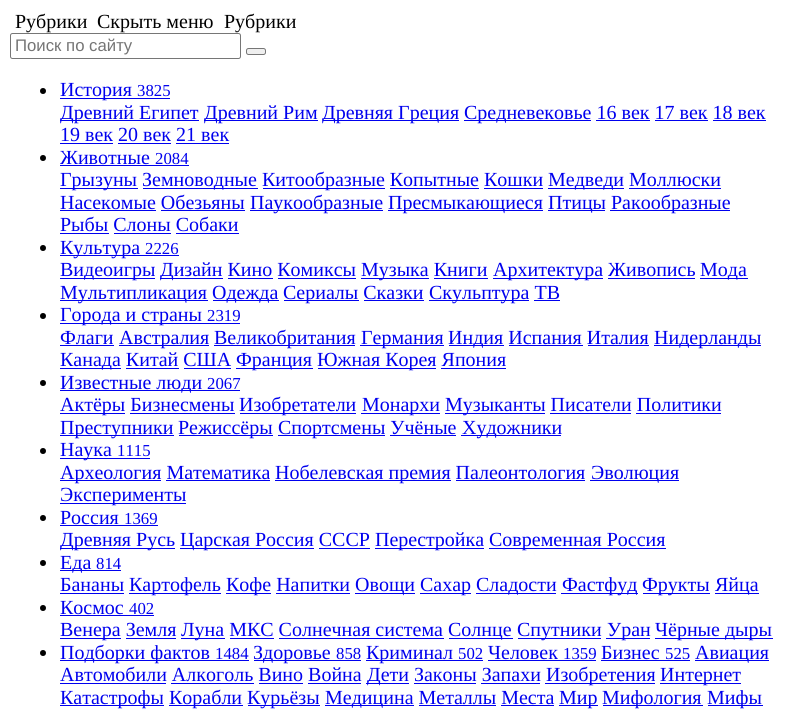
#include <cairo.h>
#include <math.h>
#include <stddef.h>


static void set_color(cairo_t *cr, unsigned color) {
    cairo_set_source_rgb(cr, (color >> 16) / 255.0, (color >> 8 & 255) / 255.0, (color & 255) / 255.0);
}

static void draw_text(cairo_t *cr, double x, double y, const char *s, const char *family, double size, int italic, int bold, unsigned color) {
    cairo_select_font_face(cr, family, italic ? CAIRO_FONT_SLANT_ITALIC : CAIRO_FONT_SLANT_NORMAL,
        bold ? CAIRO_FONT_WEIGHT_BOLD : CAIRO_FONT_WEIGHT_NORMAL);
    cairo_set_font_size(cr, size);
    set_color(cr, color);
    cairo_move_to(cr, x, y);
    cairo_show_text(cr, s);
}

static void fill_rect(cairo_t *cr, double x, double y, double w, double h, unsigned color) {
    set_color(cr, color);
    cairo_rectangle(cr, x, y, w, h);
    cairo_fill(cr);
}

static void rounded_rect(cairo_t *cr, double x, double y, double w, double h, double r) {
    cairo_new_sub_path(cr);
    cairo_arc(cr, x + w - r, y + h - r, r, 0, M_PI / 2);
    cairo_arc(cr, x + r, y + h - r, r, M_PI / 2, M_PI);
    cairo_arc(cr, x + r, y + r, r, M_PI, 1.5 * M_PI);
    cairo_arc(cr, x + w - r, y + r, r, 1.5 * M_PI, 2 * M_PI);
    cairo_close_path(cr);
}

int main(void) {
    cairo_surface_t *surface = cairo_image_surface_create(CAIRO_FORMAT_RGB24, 786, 715);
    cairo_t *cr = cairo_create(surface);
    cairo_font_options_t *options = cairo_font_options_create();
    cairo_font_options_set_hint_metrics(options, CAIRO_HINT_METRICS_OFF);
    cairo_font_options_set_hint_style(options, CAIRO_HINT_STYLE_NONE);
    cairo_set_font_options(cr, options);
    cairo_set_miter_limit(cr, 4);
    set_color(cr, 0xFFFFFF);
    cairo_paint(cr);
    draw_text(cr, 15, 28, "Рубрики", "Liberation Serif", 20, 0, 0, 0x000000);
    draw_text(cr, 97, 28, "Скрыть меню", "Liberation Serif", 20, 0, 0, 0x000000);
    draw_text(cr, 224, 28, "Рубрики", "Liberation Serif", 20, 0, 0, 0x000000);
    rounded_rect(cr, 10.5, 33.5, 230, 25, 2);
    set_color(cr, 0x767676);
    cairo_set_line_width(cr, 1);
    cairo_stroke(cr);
    draw_text(cr, 15, 51, "Поиск по сайту", "Liberation Sans", 16.75, 0, 0, 0x757575);
    set_color(cr, 0xEFEFEF);
    rounded_rect(cr, 246.5, 48.5, 19, 6, 2);
    cairo_fill_preserve(cr);
    set_color(cr, 0x767676);
    cairo_stroke(cr);
    set_color(cr, 0x000000);
    cairo_arc(cr, 43, 91, 3, 0, 2 * M_PI);
    cairo_fill(cr);
    fill_rect(cr, 60, 98, 110, 1, 0x0000EE);
    draw_text(cr, 60, 96, "История", "Liberation Serif", 20, 0, 0, 0x0000EE);
    draw_text(cr, 137, 96, "3825", "Liberation Serif", 16.75, 0, 0, 0x0000EE);
    fill_rect(cr, 60, 120, 139, 1, 0x0000EE);
    draw_text(cr, 60, 119, "Древний Египет", "Liberation Serif", 20, 0, 0, 0x0000EE);
    fill_rect(cr, 204, 120, 114, 1, 0x0000EE);
    draw_text(cr, 204, 119, "Древний Рим", "Liberation Serif", 20, 0, 0, 0x0000EE);
    fill_rect(cr, 323, 120, 136, 1, 0x0000EE);
    draw_text(cr, 322, 119, "Древняя Греция", "Liberation Serif", 20, 0, 0, 0x0000EE);
    fill_rect(cr, 464, 120, 127, 1, 0x0000EE);
    draw_text(cr, 464, 119, "Средневековье 16 век 17 век 18 век", "Liberation Serif", 20, 0, 0, 0x0000EE);
    fill_rect(cr, 596, 120, 54, 1, 0x0000EE);
    fill_rect(cr, 655, 120, 53, 1, 0x0000EE);
    fill_rect(cr, 713, 120, 53, 1, 0x0000EE);
    draw_text(cr, 60, 141, "19 век 20 век 21 век", "Liberation Serif", 20, 0, 0, 0x0000EE);
    fill_rect(cr, 60, 143, 53, 1, 0x0000EE);
    fill_rect(cr, 118, 143, 53, 1, 0x0000EE);
    fill_rect(cr, 176, 143, 53, 1, 0x0000EE);
    set_color(cr, 0x000000);
    cairo_new_path(cr);
    cairo_arc(cr, 43, 158, 3, 0, 2 * M_PI);
    cairo_fill(cr);
    draw_text(cr, 60, 164, "Животные", "Liberation Serif", 20, 0, 0, 0x0000EE);
    draw_text(cr, 155, 164, "2084", "Liberation Serif", 16.75, 0, 0, 0x0000EE);
    fill_rect(cr, 60, 165, 129, 1, 0x0000EE);
    fill_rect(cr, 60, 188, 78, 1, 0x0000EE);
    draw_text(cr, 60, 186, "Грызуны", "Liberation Serif", 20, 0, 0, 0x0000EE);
    fill_rect(cr, 143, 188, 115, 1, 0x0000EE);
    draw_text(cr, 142, 186, "Земноводные", "Liberation Serif", 20, 0, 0, 0x0000EE);
    fill_rect(cr, 263, 188, 122, 1, 0x0000EE);
    draw_text(cr, 262, 186, "Китообразные Копытные Кошки", "Liberation Serif", 20, 0, 0, 0x0000EE);
    fill_rect(cr, 548, 188, 76, 1, 0x0000EE);
    draw_text(cr, 548, 186, "Медведи Моллюски", "Liberation Serif", 20, 0, 0, 0x0000EE);
    fill_rect(cr, 390, 188, 89, 1, 0x0000EE);
    fill_rect(cr, 484, 188, 59, 1, 0x0000EE);
    fill_rect(cr, 629, 188, 92, 1, 0x0000EE);
    draw_text(cr, 60, 209, "Насекомые Обезьяны", "Liberation Serif", 20, 0, 0, 0x0000EE);
    fill_rect(cr, 60, 210, 96, 1, 0x0000EE);
    fill_rect(cr, 250, 210, 133, 1, 0x0000EE);
    draw_text(cr, 250, 209, "Паукообразные", "Liberation Serif", 20, 0, 0, 0x0000EE);
    fill_rect(cr, 388, 210, 155, 1, 0x0000EE);
    draw_text(cr, 388, 209, "Пресмыкающиеся", "Liberation Serif", 20, 0, 0, 0x0000EE);
    fill_rect(cr, 548, 210, 57, 1, 0x0000EE);
    draw_text(cr, 548, 209, "Птицы", "Liberation Serif", 20, 0, 0, 0x0000EE);
    fill_rect(cr, 610, 210, 120, 1, 0x0000EE);
    draw_text(cr, 611, 209, "Ракообразные", "Liberation Serif", 20, 0, 0, 0x0000EE);
    fill_rect(cr, 161, 210, 84, 1, 0x0000EE);
    draw_text(cr, 60, 231, "Рыбы Слоны Собаки", "Liberation Serif", 20, 0, 0, 0x0000EE);
    fill_rect(cr, 60, 233, 49, 1, 0x0000EE);
    fill_rect(cr, 114, 233, 57, 1, 0x0000EE);
    fill_rect(cr, 176, 233, 63, 1, 0x0000EE);
    set_color(cr, 0x000000);
    cairo_new_path(cr);
    cairo_arc(cr, 43, 248, 3, 0, 2 * M_PI);
    cairo_fill(cr);
    fill_rect(cr, 60, 255, 119, 1, 0x0000EE);
    draw_text(cr, 60, 254, "Культура", "Liberation Serif", 20, 0, 0, 0x0000EE);
    draw_text(cr, 145, 254, "2226", "Liberation Serif", 16.75, 0, 0, 0x0000EE);
    fill_rect(cr, 60, 278, 95, 1, 0x0000EE);
    draw_text(cr, 60, 276, "Видеоигры", "Liberation Serif", 20, 0, 0, 0x0000EE);
    fill_rect(cr, 160, 278, 63, 1, 0x0000EE);
    draw_text(cr, 160, 276, "Дизайн Кино Комиксы", "Liberation Serif", 20, 0, 0, 0x0000EE);
    fill_rect(cr, 361, 278, 68, 1, 0x0000EE);
    draw_text(cr, 361, 276, "Музыка Книги", "Liberation Serif", 20, 0, 0, 0x0000EE);
    fill_rect(cr, 493, 278, 110, 1, 0x0000EE);
    draw_text(cr, 493, 276, "Архитектура Живопись", "Liberation Serif", 20, 0, 0, 0x0000EE);
    fill_rect(cr, 700, 278, 48, 1, 0x0000EE);
    draw_text(cr, 700, 276, "Мода", "Liberation Serif", 20, 0, 0, 0x0000EE);
    fill_rect(cr, 228, 278, 45, 1, 0x0000EE);
    fill_rect(cr, 278, 278, 78, 1, 0x0000EE);
    fill_rect(cr, 434, 278, 54, 1, 0x0000EE);
    fill_rect(cr, 608, 278, 87, 1, 0x0000EE);
    fill_rect(cr, 60, 300, 148, 1, 0x0000EE);
    draw_text(cr, 60, 299, "Мультипликация", "Liberation Serif", 20, 0, 0, 0x0000EE);
    fill_rect(cr, 213, 300, 66, 1, 0x0000EE);
    draw_text(cr, 212, 299, "Одежда", "Liberation Serif", 20, 0, 0, 0x0000EE);
    fill_rect(cr, 284, 300, 75, 1, 0x0000EE);
    draw_text(cr, 283, 299, "Сериалы Сказки", "Liberation Serif", 20, 0, 0, 0x0000EE);
    fill_rect(cr, 429, 300, 100, 1, 0x0000EE);
    draw_text(cr, 429, 299, "Скульптура ТВ", "Liberation Serif", 20, 0, 0, 0x0000EE);
    fill_rect(cr, 364, 300, 60, 1, 0x0000EE);
    fill_rect(cr, 534, 300, 26, 1, 0x0000EE);
    set_color(cr, 0x000000);
    cairo_new_path(cr);
    cairo_arc(cr, 43, 316, 3, 0, 2 * M_PI);
    cairo_fill(cr);
    fill_rect(cr, 60, 323, 180, 1, 0x0000EE);
    draw_text(cr, 60, 321, "Города и страны", "Liberation Serif", 20, 0, 0, 0x0000EE);
    draw_text(cr, 207, 321, "2319", "Liberation Serif", 16.75, 0, 0, 0x0000EE);
    draw_text(cr, 60, 344, "Флаги", "Liberation Serif", 20, 0, 0, 0x0000EE);
    fill_rect(cr, 60, 345, 54, 1, 0x0000EE);
    fill_rect(cr, 119, 345, 90, 1, 0x0000EE);
    draw_text(cr, 119, 344, "Австралия", "Liberation Serif", 20, 0, 0, 0x0000EE);
    fill_rect(cr, 214, 345, 141, 1, 0x0000EE);
    draw_text(cr, 214, 344, "Великобритания", "Liberation Serif", 20, 0, 0, 0x0000EE);
    fill_rect(cr, 360, 345, 84, 1, 0x0000EE);
    draw_text(cr, 361, 344, "Германия", "Liberation Serif", 20, 0, 0, 0x0000EE);
    fill_rect(cr, 449, 345, 55, 1, 0x0000EE);
    draw_text(cr, 448, 344, "Индия Испания Италия", "Liberation Serif", 20, 0, 0, 0x0000EE);
    fill_rect(cr, 654, 345, 107, 1, 0x0000EE);
    draw_text(cr, 654, 344, "Нидерланды", "Liberation Serif", 20, 0, 0, 0x0000EE);
    fill_rect(cr, 509, 345, 74, 1, 0x0000EE);
    fill_rect(cr, 588, 345, 61, 1, 0x0000EE);
    fill_rect(cr, 60, 368, 61, 1, 0x0000EE);
    draw_text(cr, 60, 366, "Канада Китай США", "Liberation Serif", 20, 0, 0, 0x0000EE);
    fill_rect(cr, 236, 368, 77, 1, 0x0000EE);
    draw_text(cr, 236, 366, "Франция", "Liberation Serif", 20, 0, 0, 0x0000EE);
    fill_rect(cr, 318, 368, 118, 1, 0x0000EE);
    draw_text(cr, 317, 366, "Южная Корея Япония", "Liberation Serif", 20, 0, 0, 0x0000EE);
    fill_rect(cr, 126, 368, 53, 1, 0x0000EE);
    fill_rect(cr, 184, 368, 47, 1, 0x0000EE);
    fill_rect(cr, 441, 368, 65, 1, 0x0000EE);
    set_color(cr, 0x000000);
    cairo_new_path(cr);
    cairo_arc(cr, 43, 383, 3, 0, 2 * M_PI);
    cairo_fill(cr);
    fill_rect(cr, 60, 390, 180, 1, 0x0000EE);
    draw_text(cr, 60, 389, "Известные люди", "Liberation Serif", 20, 0, 0, 0x0000EE);
    draw_text(cr, 207, 389, "2067", "Liberation Serif", 16.75, 0, 0, 0x0000EE);
    fill_rect(cr, 60, 413, 65, 1, 0x0000EE);
    draw_text(cr, 60, 411, "Актёры Бизнесмены", "Liberation Serif", 20, 0, 0, 0x0000EE);
    fill_rect(cr, 240, 413, 116, 1, 0x0000EE);
    draw_text(cr, 239, 411, "Изобретатели", "Liberation Serif", 20, 0, 0, 0x0000EE);
    fill_rect(cr, 361, 413, 79, 1, 0x0000EE);
    draw_text(cr, 362, 411, "Монархи", "Liberation Serif", 20, 0, 0, 0x0000EE);
    fill_rect(cr, 445, 413, 100, 1, 0x0000EE);
    draw_text(cr, 445, 411, "Музыканты Писатели Политики", "Liberation Serif", 20, 0, 0, 0x0000EE);
    fill_rect(cr, 130, 413, 105, 1, 0x0000EE);
    fill_rect(cr, 550, 413, 81, 1, 0x0000EE);
    fill_rect(cr, 636, 413, 85, 1, 0x0000EE);
    fill_rect(cr, 60, 435, 114, 1, 0x0000EE);
    draw_text(cr, 60, 434, "Преступники", "Liberation Serif", 20, 0, 0, 0x0000EE);
    fill_rect(cr, 179, 435, 94, 1, 0x0000EE);
    draw_text(cr, 178, 434, "Режиссёры", "Liberation Serif", 20, 0, 0, 0x0000EE);
    fill_rect(cr, 278, 435, 107, 1, 0x0000EE);
    draw_text(cr, 278, 434, "Спортсмены Учёные", "Liberation Serif", 20, 0, 0, 0x0000EE);
    fill_rect(cr, 461, 435, 100, 1, 0x0000EE);
    draw_text(cr, 462, 434, "Художники", "Liberation Serif", 20, 0, 0, 0x0000EE);
    fill_rect(cr, 390, 435, 66, 1, 0x0000EE);
    set_color(cr, 0x000000);
    cairo_new_path(cr);
    cairo_arc(cr, 43, 451, 3, 0, 2 * M_PI);
    cairo_fill(cr);
    fill_rect(cr, 60, 458, 90, 1, 0x0000EE);
    draw_text(cr, 60, 456, "Наука", "Liberation Serif", 20, 0, 0, 0x0000EE);
    draw_text(cr, 117, 456, "1115", "Liberation Serif", 16.75, 0, 0, 0x0000EE);
    fill_rect(cr, 60, 480, 101, 1, 0x0000EE);
    draw_text(cr, 60, 479, "Археология Математика", "Liberation Serif", 20, 0, 0, 0x0000EE);
    fill_rect(cr, 275, 480, 176, 1, 0x0000EE);
    draw_text(cr, 275, 479, "Нобелевская премия Палеонтология", "Liberation Serif", 20, 0, 0, 0x0000EE);
    fill_rect(cr, 590, 480, 89, 1, 0x0000EE);
    draw_text(cr, 591, 479, "Эволюция", "Liberation Serif", 20, 0, 0, 0x0000EE);
    fill_rect(cr, 166, 480, 104, 1, 0x0000EE);
    fill_rect(cr, 456, 480, 129, 1, 0x0000EE);
    fill_rect(cr, 60, 503, 126, 1, 0x0000EE);
    draw_text(cr, 60, 501, "Эксперименты", "Liberation Serif", 20, 0, 0, 0x0000EE);
    set_color(cr, 0x000000);
    cairo_new_path(cr);
    cairo_arc(cr, 43, 518, 3, 0, 2 * M_PI);
    cairo_fill(cr);
    draw_text(cr, 60, 524, "Россия", "Liberation Serif", 20, 0, 0, 0x0000EE);
    draw_text(cr, 124, 524, "1369", "Liberation Serif", 16.75, 0, 0, 0x0000EE);
    fill_rect(cr, 60, 525, 98, 1, 0x0000EE);
    fill_rect(cr, 60, 548, 115, 1, 0x0000EE);
    draw_text(cr, 60, 546, "Древняя Русь", "Liberation Serif", 20, 0, 0, 0x0000EE);
    fill_rect(cr, 180, 548, 134, 1, 0x0000EE);
    draw_text(cr, 180, 546, "Царская Россия СССР", "Liberation Serif", 20, 0, 0, 0x0000EE);
    fill_rect(cr, 375, 548, 109, 1, 0x0000EE);
    draw_text(cr, 375, 546, "Перестройка", "Liberation Serif", 20, 0, 0, 0x0000EE);
    fill_rect(cr, 489, 548, 177, 1, 0x0000EE);
    draw_text(cr, 489, 546, "Современная Россия", "Liberation Serif", 20, 0, 0, 0x0000EE);
    fill_rect(cr, 319, 548, 51, 1, 0x0000EE);
    set_color(cr, 0x000000);
    cairo_new_path(cr);
    cairo_arc(cr, 43, 563, 3, 0, 2 * M_PI);
    cairo_fill(cr);
    fill_rect(cr, 60, 570, 61, 1, 0x0000EE);
    draw_text(cr, 60, 569, "Еда", "Liberation Serif", 20, 0, 0, 0x0000EE);
    draw_text(cr, 96, 569, "814", "Liberation Serif", 16.75, 0, 0, 0x0000EE);
    draw_text(cr, 60, 591, "Бананы", "Liberation Serif", 20, 0, 0, 0x0000EE);
    fill_rect(cr, 60, 593, 64, 1, 0x0000EE);
    fill_rect(cr, 129, 593, 92, 1, 0x0000EE);
    draw_text(cr, 129, 591, "Картофель", "Liberation Serif", 20, 0, 0, 0x0000EE);
    fill_rect(cr, 226, 593, 45, 1, 0x0000EE);
    draw_text(cr, 226, 591, "Кофе Напитки", "Liberation Serif", 20, 0, 0, 0x0000EE);
    fill_rect(cr, 355, 593, 60, 1, 0x0000EE);
    draw_text(cr, 355, 591, "Овощи", "Liberation Serif", 20, 0, 0, 0x0000EE);
    fill_rect(cr, 420, 593, 51, 1, 0x0000EE);
    draw_text(cr, 420, 591, "Сахар", "Liberation Serif", 20, 0, 0, 0x0000EE);
    fill_rect(cr, 476, 593, 80, 1, 0x0000EE);
    draw_text(cr, 476, 591, "Сладости", "Liberation Serif", 20, 0, 0, 0x0000EE);
    fill_rect(cr, 561, 593, 77, 1, 0x0000EE);
    draw_text(cr, 562, 591, "Фастфуд", "Liberation Serif", 20, 0, 0, 0x0000EE);
    fill_rect(cr, 643, 593, 67, 1, 0x0000EE);
    draw_text(cr, 642, 591, "Фрукты", "Liberation Serif", 20, 0, 0, 0x0000EE);
    fill_rect(cr, 715, 593, 44, 1, 0x0000EE);
    draw_text(cr, 715, 591, "Яйца", "Liberation Serif", 20, 0, 0, 0x0000EE);
    fill_rect(cr, 276, 593, 74, 1, 0x0000EE);
    set_color(cr, 0x000000);
    cairo_new_path(cr);
    cairo_arc(cr, 43, 608, 3, 0, 2 * M_PI);
    cairo_fill(cr);
    draw_text(cr, 60, 614, "Космос", "Liberation Serif", 20, 0, 0, 0x0000EE);
    draw_text(cr, 129, 614, "402", "Liberation Serif", 16.75, 0, 0, 0x0000EE);
    fill_rect(cr, 60, 615, 94, 1, 0x0000EE);
    fill_rect(cr, 60, 638, 61, 1, 0x0000EE);
    draw_text(cr, 60, 636, "Венера Земля", "Liberation Serif", 20, 0, 0, 0x0000EE);
    fill_rect(cr, 181, 638, 44, 1, 0x0000EE);
    draw_text(cr, 181, 636, "Луна МКС Солнечная система", "Liberation Serif", 20, 0, 0, 0x0000EE);
    fill_rect(cr, 449, 638, 64, 1, 0x0000EE);
    draw_text(cr, 448, 636, "Солнце", "Liberation Serif", 20, 0, 0, 0x0000EE);
    fill_rect(cr, 518, 638, 83, 1, 0x0000EE);
    draw_text(cr, 517, 636, "Спутники", "Liberation Serif", 20, 0, 0, 0x0000EE);
    fill_rect(cr, 606, 638, 44, 1, 0x0000EE);
    draw_text(cr, 607, 636, "Уран", "Liberation Serif", 20, 0, 0, 0x0000EE);
    fill_rect(cr, 655, 638, 118, 1, 0x0000EE);
    draw_text(cr, 655, 636, "Чёрные дыры", "Liberation Serif", 20, 0, 0, 0x0000EE);
    fill_rect(cr, 126, 638, 50, 1, 0x0000EE);
    fill_rect(cr, 230, 638, 44, 1, 0x0000EE);
    fill_rect(cr, 279, 638, 165, 1, 0x0000EE);
    set_color(cr, 0x000000);
    cairo_new_path(cr);
    cairo_arc(cr, 43, 653, 3, 0, 2 * M_PI);
    cairo_fill(cr);
    fill_rect(cr, 60, 660, 189, 1, 0x0000EE);
    draw_text(cr, 60, 659, "Подборки фактов", "Liberation Serif", 20, 0, 0, 0x0000EE);
    draw_text(cr, 215, 659, "1484", "Liberation Serif", 16.75, 0, 0, 0x0000EE);
    fill_rect(cr, 254, 660, 107, 1, 0x0000EE);
    draw_text(cr, 253, 659, "Здоровье", "Liberation Serif", 20, 0, 0, 0x0000EE);
    draw_text(cr, 336, 659, "858", "Liberation Serif", 16.75, 0, 0, 0x0000EE);
    fill_rect(cr, 366, 660, 117, 1, 0x0000EE);
    draw_text(cr, 366, 659, "Криминал", "Liberation Serif", 20, 0, 0, 0x0000EE);
    draw_text(cr, 458, 659, "502", "Liberation Serif", 16.75, 0, 0, 0x0000EE);
    draw_text(cr, 488, 659, "Человек", "Liberation Serif", 20, 0, 0, 0x0000EE);
    draw_text(cr, 563, 659, "1359", "Liberation Serif", 16.75, 0, 0, 0x0000EE);
    fill_rect(cr, 488, 660, 108, 1, 0x0000EE);
    draw_text(cr, 601, 659, "Бизнес", "Liberation Serif", 20, 0, 0, 0x0000EE);
    draw_text(cr, 665, 659, "525", "Liberation Serif", 16.75, 0, 0, 0x0000EE);
    fill_rect(cr, 601, 660, 89, 1, 0x0000EE);
    fill_rect(cr, 695, 660, 74, 1, 0x0000EE);
    draw_text(cr, 695, 659, "Авиация", "Liberation Serif", 20, 0, 0, 0x0000EE);
    draw_text(cr, 60, 681, "Автомобили Алкоголь Вино Война", "Liberation Serif", 20, 0, 0, 0x0000EE);
    fill_rect(cr, 60, 683, 106, 1, 0x0000EE);
    fill_rect(cr, 366, 683, 43, 1, 0x0000EE);
    draw_text(cr, 367, 681, "Дети Законы Запахи", "Liberation Serif", 20, 0, 0, 0x0000EE);
    fill_rect(cr, 545, 683, 110, 1, 0x0000EE);
    draw_text(cr, 546, 681, "Изобретения", "Liberation Serif", 20, 0, 0, 0x0000EE);
    fill_rect(cr, 660, 683, 81, 1, 0x0000EE);
    draw_text(cr, 660, 681, "Интернет", "Liberation Serif", 20, 0, 0, 0x0000EE);
    fill_rect(cr, 171, 683, 83, 1, 0x0000EE);
    fill_rect(cr, 259, 683, 44, 1, 0x0000EE);
    fill_rect(cr, 308, 683, 53, 1, 0x0000EE);
    fill_rect(cr, 414, 683, 62, 1, 0x0000EE);
    fill_rect(cr, 481, 683, 59, 1, 0x0000EE);
    fill_rect(cr, 60, 705, 104, 1, 0x0000EE);
    draw_text(cr, 60, 704, "Катастрофы", "Liberation Serif", 20, 0, 0, 0x0000EE);
    fill_rect(cr, 169, 705, 74, 1, 0x0000EE);
    draw_text(cr, 169, 704, "Корабли", "Liberation Serif", 20, 0, 0, 0x0000EE);
    fill_rect(cr, 248, 705, 72, 1, 0x0000EE);
    draw_text(cr, 247, 704, "Курьёзы", "Liberation Serif", 20, 0, 0, 0x0000EE);
    fill_rect(cr, 325, 705, 89, 1, 0x0000EE);
    draw_text(cr, 325, 704, "Медицина Металлы Места", "Liberation Serif", 20, 0, 0, 0x0000EE);
    fill_rect(cr, 559, 705, 39, 1, 0x0000EE);
    draw_text(cr, 559, 704, "Мир", "Liberation Serif", 20, 0, 0, 0x0000EE);
    fill_rect(cr, 603, 705, 100, 1, 0x0000EE);
    draw_text(cr, 602, 704, "Мифология", "Liberation Serif", 20, 0, 0, 0x0000EE);
    fill_rect(cr, 708, 705, 55, 1, 0x0000EE);
    draw_text(cr, 707, 704, "Мифы", "Liberation Serif", 20, 0, 0, 0x0000EE);
    fill_rect(cr, 419, 705, 77, 1, 0x0000EE);
    fill_rect(cr, 501, 705, 53, 1, 0x0000EE);
    cairo_surface_write_to_png(surface, "output.png");
    cairo_font_options_destroy(options);
    cairo_destroy(cr);
    cairo_surface_destroy(surface);
    return 0;
}
